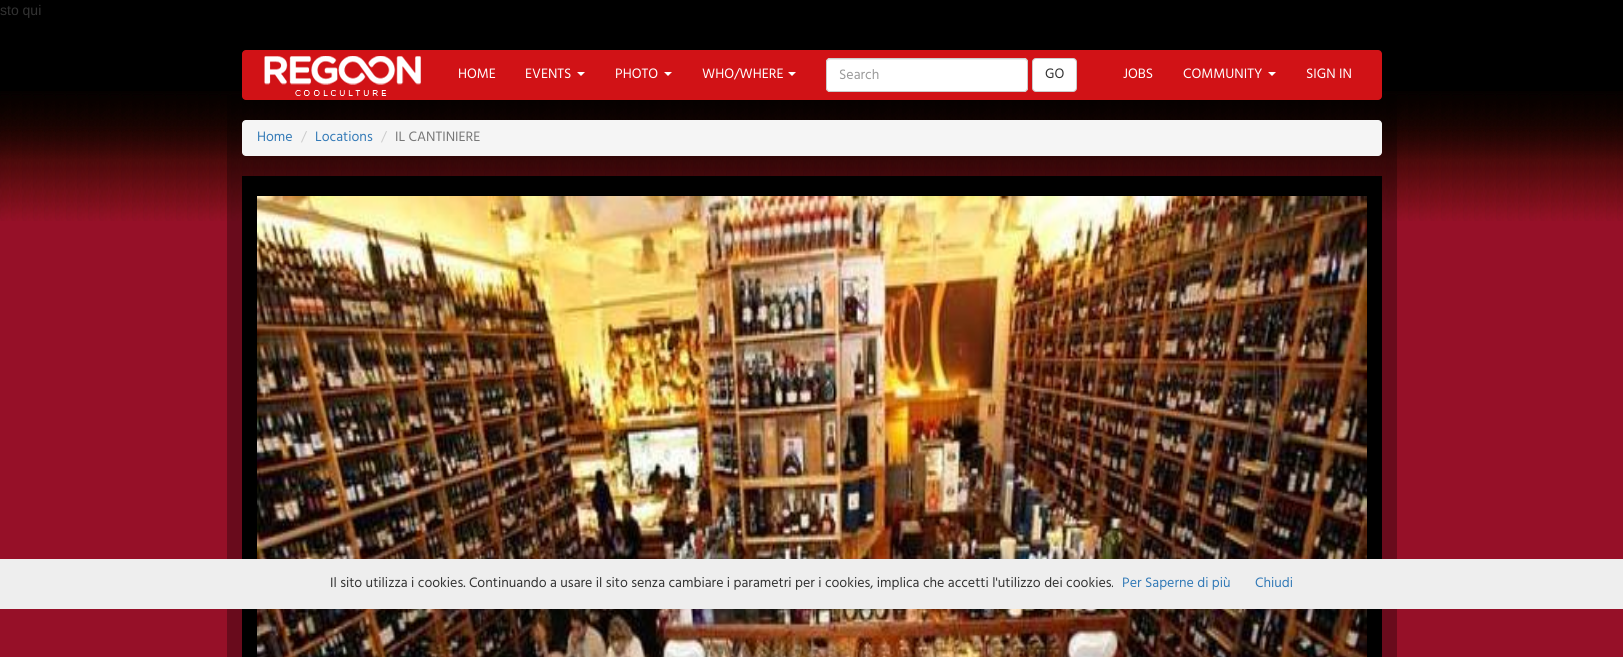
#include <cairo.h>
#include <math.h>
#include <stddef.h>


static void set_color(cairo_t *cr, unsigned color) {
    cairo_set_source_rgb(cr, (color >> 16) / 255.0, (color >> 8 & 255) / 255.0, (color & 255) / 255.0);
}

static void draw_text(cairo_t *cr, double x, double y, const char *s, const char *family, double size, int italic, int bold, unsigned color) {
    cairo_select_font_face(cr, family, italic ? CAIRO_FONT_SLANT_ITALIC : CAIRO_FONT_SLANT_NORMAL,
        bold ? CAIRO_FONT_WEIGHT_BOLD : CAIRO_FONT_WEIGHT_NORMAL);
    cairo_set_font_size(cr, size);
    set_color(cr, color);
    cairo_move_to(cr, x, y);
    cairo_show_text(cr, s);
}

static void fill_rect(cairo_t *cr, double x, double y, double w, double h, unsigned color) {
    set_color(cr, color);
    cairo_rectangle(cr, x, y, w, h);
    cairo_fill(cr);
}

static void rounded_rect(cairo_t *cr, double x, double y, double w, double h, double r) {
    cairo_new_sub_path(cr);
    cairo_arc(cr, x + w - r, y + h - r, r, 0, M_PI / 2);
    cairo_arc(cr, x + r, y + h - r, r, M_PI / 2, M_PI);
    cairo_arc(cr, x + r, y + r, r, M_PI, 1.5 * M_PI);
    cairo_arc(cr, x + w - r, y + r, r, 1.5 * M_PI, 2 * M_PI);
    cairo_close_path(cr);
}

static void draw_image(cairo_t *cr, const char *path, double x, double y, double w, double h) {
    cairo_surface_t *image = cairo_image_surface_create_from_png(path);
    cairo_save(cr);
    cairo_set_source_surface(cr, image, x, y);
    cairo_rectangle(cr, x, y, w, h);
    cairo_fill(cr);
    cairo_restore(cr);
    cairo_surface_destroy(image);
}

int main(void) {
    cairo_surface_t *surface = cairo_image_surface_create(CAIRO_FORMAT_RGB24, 1623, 657);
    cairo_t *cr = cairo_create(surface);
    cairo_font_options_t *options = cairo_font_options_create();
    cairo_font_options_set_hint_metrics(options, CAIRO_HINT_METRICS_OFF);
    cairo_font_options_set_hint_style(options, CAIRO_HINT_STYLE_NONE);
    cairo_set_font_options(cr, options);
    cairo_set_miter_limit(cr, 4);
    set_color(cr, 0x961028);
    cairo_paint(cr);
    draw_image(cr, "assets/img1.png", 0, 0, 1623, 221);
    draw_text(cr, 0, 15, "sto qui", "Liberation Sans", 14, 0, 0, 0x333333);
    cairo_set_source_rgba(cr, 0, 0, 0, 0.3);
    cairo_rectangle(cr, 227, 95, 1170, 562);
    cairo_fill(cr);
    set_color(cr, 0xD11216);
    rounded_rect(cr, 242, 50, 1140, 50, 4);
    cairo_fill(cr);
    draw_image(cr, "assets/img2.png", 264, 56, 157, 40);
    draw_text(cr, 458, 78, "HOME", "Hind", 14, 0, 0, 0xFFFFFF);
    draw_text(cr, 525, 78, "EVENTS", "Hind", 14, 0, 0, 0xFFFFFF);
    cairo_new_path(cr);
    cairo_move_to(cr, 577, 72);
    cairo_line_to(cr, 585, 72);
    cairo_line_to(cr, 581, 76);
    cairo_close_path(cr);
    cairo_fill(cr);
    draw_text(cr, 615, 78, "PHOTO", "Hind", 14, 0, 0, 0xFFFFFF);
    cairo_new_path(cr);
    cairo_move_to(cr, 664, 72);
    cairo_line_to(cr, 672, 72);
    cairo_line_to(cr, 668, 76);
    cairo_close_path(cr);
    cairo_fill(cr);
    draw_text(cr, 702, 78, "WHO/WHERE", "Hind", 14, 0, 0, 0xFFFFFF);
    cairo_new_path(cr);
    cairo_move_to(cr, 788, 72);
    cairo_line_to(cr, 796, 72);
    cairo_line_to(cr, 792, 76);
    cairo_close_path(cr);
    cairo_fill(cr);
    rounded_rect(cr, 826, 58, 202, 34, 4);
    cairo_fill(cr);
    set_color(cr, 0xECECEC);
    cairo_new_path(cr);
    cairo_move_to(cr, 830, 60);
    cairo_line_to(cr, 1024, 60);
    cairo_curve_to(cr, 1026, 60, 1027, 61, 1027, 63);
    cairo_curve_to(cr, 1027, 61, 1026, 59, 1024, 59);
    cairo_line_to(cr, 830, 59);
    cairo_curve_to(cr, 828, 59, 827, 61, 827, 63);
    cairo_curve_to(cr, 827, 61, 828, 60, 830, 60);
    cairo_close_path(cr);
    cairo_fill(cr);
    rounded_rect(cr, 826.5, 58.5, 201, 33, 3.5);
    set_color(cr, 0xCCCCCC);
    cairo_set_line_width(cr, 1);
    cairo_stroke(cr);
    draw_text(cr, 839, 79, "Search", "Hind", 14, 0, 0, 0x999999);
    set_color(cr, 0xFFFFFF);
    rounded_rect(cr, 1032.5, 58.5, 44, 33, 3.5);
    cairo_fill_preserve(cr);
    set_color(cr, 0xCCCCCC);
    cairo_stroke(cr);
    draw_text(cr, 1045, 78, "GO", "Hind", 14, 0, 0, 0x333333);
    draw_text(cr, 1123, 78, "JOBS", "Hind", 14, 0, 0, 0xFFFFFF);
    draw_text(cr, 1183, 78, "COMMUNITY", "Hind", 14, 0, 0, 0xFFFFFF);
    cairo_new_path(cr);
    cairo_move_to(cr, 1268, 72);
    cairo_line_to(cr, 1276, 72);
    cairo_line_to(cr, 1272, 76);
    cairo_close_path(cr);
    cairo_fill(cr);
    draw_text(cr, 1306, 78, "SIGN IN", "Hind", 14, 0, 0, 0xFFFFFF);
    set_color(cr, 0xF5F5F5);
    rounded_rect(cr, 242, 120, 1140, 36, 4);
    cairo_fill(cr);
    draw_text(cr, 257, 141, "Home", "Hind", 14, 0, 0, 0x337AB7);
    draw_text(cr, 301, 141, "/", "Hind", 14, 0, 0, 0xCCCCCC);
    draw_text(cr, 315, 141, "Locations", "Hind", 14, 0, 0, 0x337AB7);
    draw_text(cr, 381, 141, "/", "Hind", 14, 0, 0, 0xCCCCCC);
    draw_text(cr, 395, 141, "IL CANTINIERE", "Hind", 14, 0, 0, 0x777777);
    fill_rect(cr, 242, 176, 1140, 481, 0x000000);
    draw_image(cr, "assets/img3.png", 257, 196, 1110, 461);
    fill_rect(cr, 0, 559, 1623, 50, 0xEEEEEE);
    draw_text(cr, 330, 587, "Il sito utilizza i cookies. Continuando a usare il sito senza cambiare i parametri per i cookies, implica che accetti l'utilizzo dei cookies.", "Hind", 14, 0, 0, 0x333333);
    draw_text(cr, 1122, 587, "Per Saperne di più", "Hind", 14, 0, 0, 0x337AB7);
    draw_text(cr, 1255, 587, "Chiudi", "Hind", 14, 0, 0, 0x337AB7);
    cairo_surface_write_to_png(surface, "output.png");
    cairo_font_options_destroy(options);
    cairo_destroy(cr);
    cairo_surface_destroy(surface);
    return 0;
}
